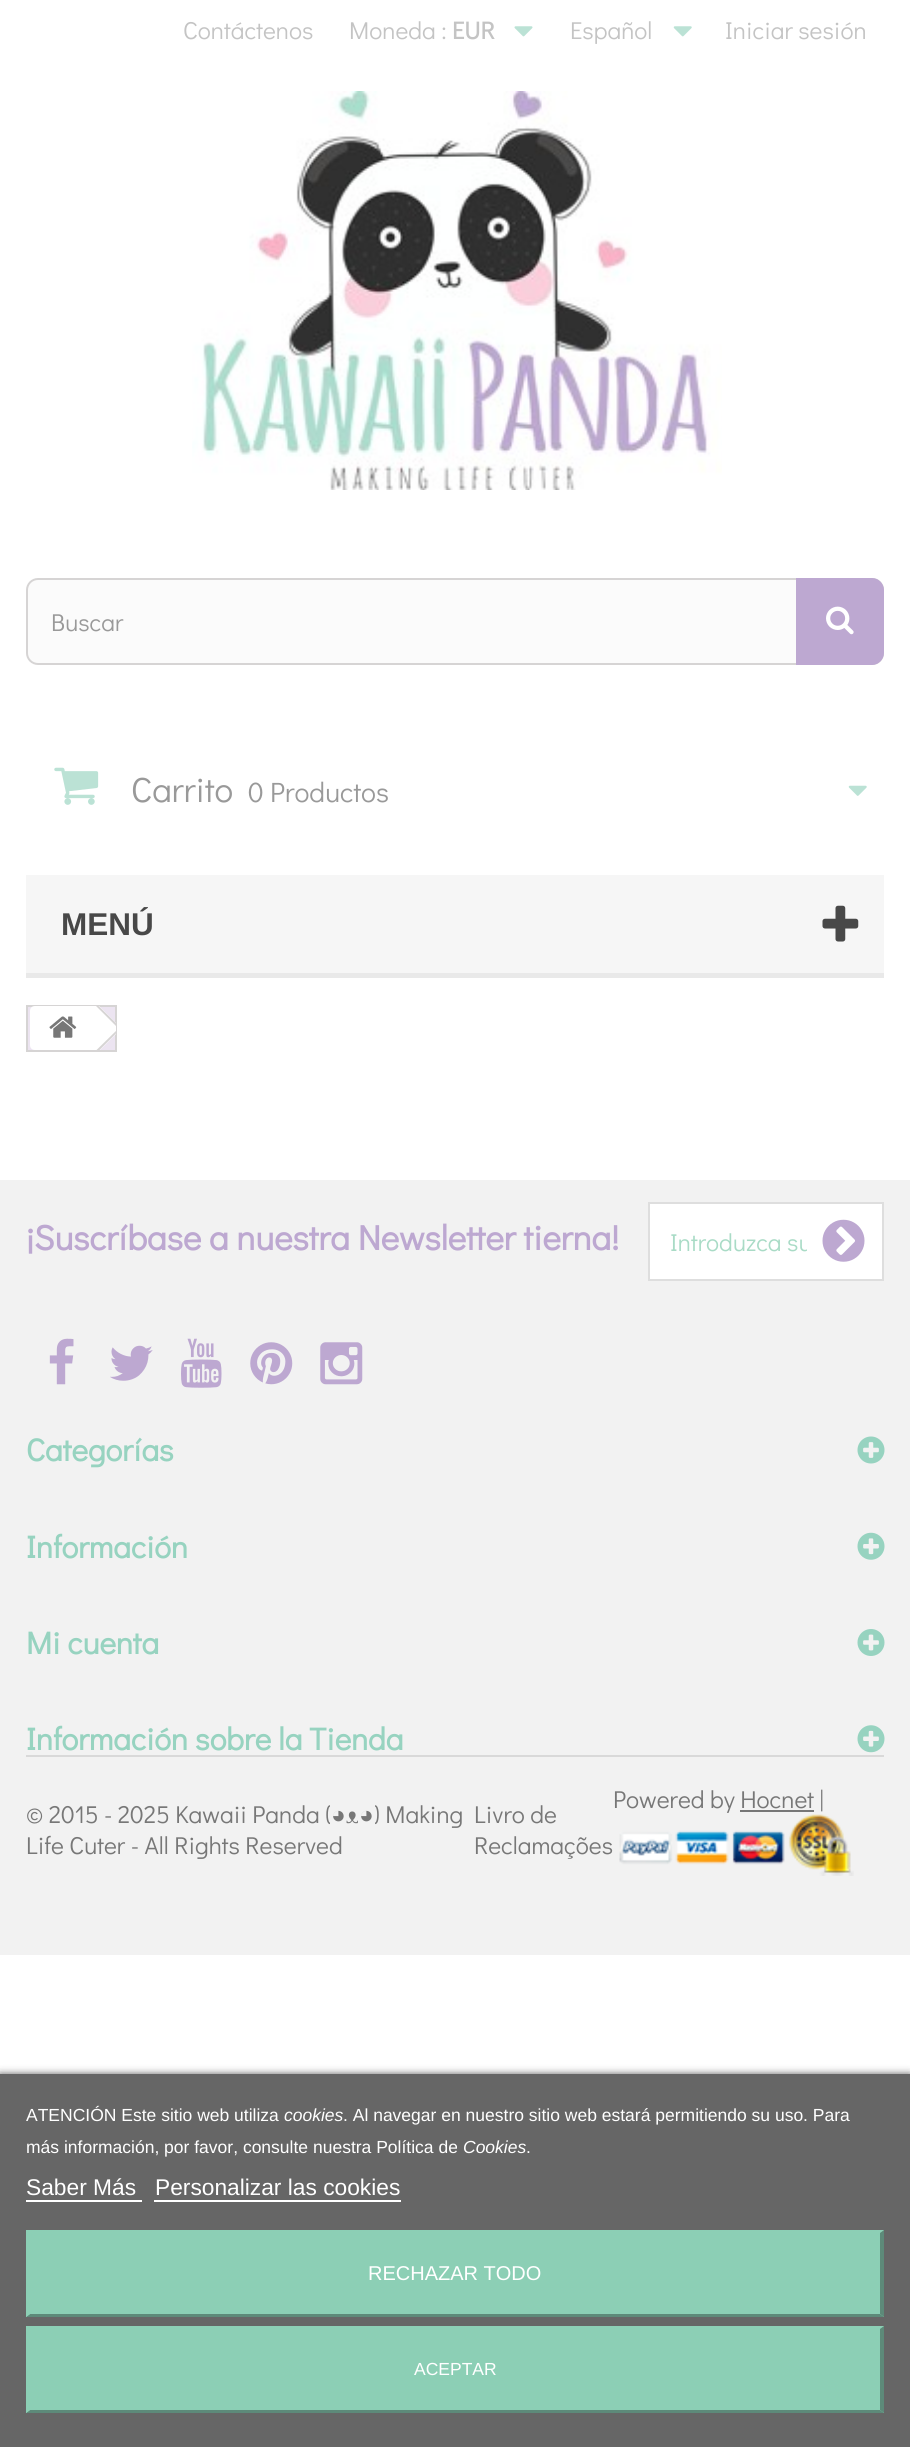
#include <cairo.h>
#include <math.h>
#include <stddef.h>


static void set_color(cairo_t *cr, unsigned color) {
    cairo_set_source_rgb(cr, (color >> 16) / 255.0, (color >> 8 & 255) / 255.0, (color & 255) / 255.0);
}

static void draw_text(cairo_t *cr, double x, double y, const char *s, const char *family, double size, int italic, int bold, unsigned color) {
    cairo_select_font_face(cr, family, italic ? CAIRO_FONT_SLANT_ITALIC : CAIRO_FONT_SLANT_NORMAL,
        bold ? CAIRO_FONT_WEIGHT_BOLD : CAIRO_FONT_WEIGHT_NORMAL);
    cairo_set_font_size(cr, size);
    set_color(cr, color);
    cairo_move_to(cr, x, y);
    cairo_show_text(cr, s);
}

static void fill_rect(cairo_t *cr, double x, double y, double w, double h, unsigned color) {
    set_color(cr, color);
    cairo_rectangle(cr, x, y, w, h);
    cairo_fill(cr);
}

static void rounded_rect(cairo_t *cr, double x, double y, double w, double h, double r) {
    cairo_new_sub_path(cr);
    cairo_arc(cr, x + w - r, y + h - r, r, 0, M_PI / 2);
    cairo_arc(cr, x + r, y + h - r, r, M_PI / 2, M_PI);
    cairo_arc(cr, x + r, y + r, r, M_PI, 1.5 * M_PI);
    cairo_arc(cr, x + w - r, y + r, r, 1.5 * M_PI, 2 * M_PI);
    cairo_close_path(cr);
}

static void draw_shadow(cairo_t *cr, double x, double y, double w, double h, double r, double blur, double alpha) {
    cairo_push_group_with_content(cr, CAIRO_CONTENT_ALPHA);
    cairo_set_operator(cr, CAIRO_OPERATOR_SOURCE);
    for (int i = 15; i >= -15 && fmin(w, h) + blur * i / 3 > 0; i -= 2) {
        double e = blur * i / 6;
        cairo_set_source_rgba(cr, 0, 0, 0, alpha * erfc((i - 1) / 8.5) / 2);
        rounded_rect(cr, x - e, y - e, w + 2 * e, h + 2 * e, fmax(0, fmin(r + e + blur * .6, fmin(w, h) / 2 + e)));
        cairo_fill(cr);
    }
    cairo_pattern_t *soft = cairo_pop_group(cr);
    cairo_mask(cr, soft);
    cairo_pattern_destroy(soft);
}

static void draw_image(cairo_t *cr, const char *path, double x, double y, double w, double h) {
    cairo_surface_t *image = cairo_image_surface_create_from_png(path);
    cairo_save(cr);
    cairo_set_source_surface(cr, image, x, y);
    cairo_rectangle(cr, x, y, w, h);
    cairo_fill(cr);
    cairo_restore(cr);
    cairo_surface_destroy(image);
}

int main(void) {
    cairo_surface_t *surface = cairo_image_surface_create(CAIRO_FORMAT_RGB24, 910, 2447);
    cairo_t *cr = cairo_create(surface);
    cairo_font_options_t *options = cairo_font_options_create();
    cairo_font_options_set_hint_metrics(options, CAIRO_HINT_METRICS_OFF);
    cairo_font_options_set_hint_style(options, CAIRO_HINT_STYLE_NONE);
    cairo_set_font_options(cr, options);
    cairo_set_miter_limit(cr, 4);
    set_color(cr, 0xFFFFFF);
    cairo_paint(cr);
    draw_text(cr, 183, 39, "Contáctenos", "Didact Gothic", 24.5, 0, 0, 0xC4C4C4);
    draw_text(cr, 349, 39, "Moneda :", "Didact Gothic", 24.5, 0, 0, 0xC4C4C4);
    draw_text(cr, 452, 39, "EUR", "Didact Gothic", 24.5, 0, 1, 0xC4C4C4);
    draw_image(cr, "assets/img1.png", 514, 26, 19, 11);
    draw_text(cr, 570, 39, "Español", "Didact Gothic", 24.5, 0, 0, 0xC4C4C4);
    draw_image(cr, "assets/img2.png", 673, 26, 19, 11);
    draw_text(cr, 725, 39, "Iniciar sesión", "Didact Gothic", 24.5, 0, 0, 0xC4C4C4);
    draw_image(cr, "assets/img3.png", 192, 91, 530, 399);
    set_color(cr, 0xFBFBFB);
    rounded_rect(cr, 27, 579, 856, 85, 11);
    cairo_fill_preserve(cr);
    set_color(cr, 0xD6D4D4);
    cairo_stroke(cr);
    draw_text(cr, 51, 631, "Buscar", "Didact Gothic", 24.5, 0, 0, 0x999999);
    set_color(cr, 0xBDA8D1);
    cairo_new_path(cr);
    cairo_move_to(cr, 796, 578);
    cairo_line_to(cr, 872, 578);
    cairo_curve_to(cr, 878.5, 578, 884, 583.5, 884, 590);
    cairo_line_to(cr, 884, 653);
    cairo_curve_to(cr, 884, 659.5, 878.5, 665, 872, 665);
    cairo_line_to(cr, 796, 665);
    cairo_close_path(cr);
    cairo_fill(cr);
    draw_image(cr, "assets/img4.png", 826, 606, 28, 29);
    draw_image(cr, "assets/img5.png", 54, 767, 45, 38);
    draw_text(cr, 131, 802, "Carrito", "Didact Gothic", 35, 0, 0, 0x999999);
    draw_text(cr, 248, 802, "0 Productos", "Didact Gothic", 28, 0, 0, 0x999999);
    draw_image(cr, "assets/img6.png", 848, 785, 19, 11);
    fill_rect(cr, 26, 875, 858, 98, 0xF6F6F6);
    fill_rect(cr, 26, 973, 858, 5, 0xE9E9E9);
    draw_text(cr, 61, 935, "MENÚ", "Liberation Sans", 31.5, 0, 1, 0x484848);
    draw_image(cr, "assets/img7.png", 822, 905, 37, 37);
    set_color(cr, 0xECE4F1);
    cairo_rectangle(cr, 27, 1006, 89, 45);
    cairo_fill_preserve(cr);
    set_color(cr, 0xD6D4D4);
    cairo_stroke(cr);
    set_color(cr, 0xFFFFFF);
    cairo_new_path(cr);
    cairo_move_to(cr, 35, 1006);
    cairo_line_to(cr, 96, 1006);
    cairo_line_to(cr, 96, 1050);
    cairo_line_to(cr, 35, 1050);
    cairo_curve_to(cr, 32, 1050, 30, 1048, 30, 1045);
    cairo_line_to(cr, 30, 1011);
    cairo_curve_to(cr, 30, 1008, 32, 1006, 35, 1006);
    cairo_close_path(cr);
    cairo_fill(cr);
    cairo_save(cr);
    cairo_rectangle(cr, 28, 1006, 88, 44);
    cairo_clip(cr);
    cairo_new_path(cr);
    cairo_move_to(cr, 99, 1006);
    cairo_line_to(cr, 119, 1026);
    cairo_curve_to(cr, 120, 1027, 120, 1029, 119, 1031);
    cairo_line_to(cr, 99, 1051);
    cairo_curve_to(cr, 97, 1052, 95, 1052, 94, 1051);
    cairo_line_to(cr, 74, 1031);
    cairo_curve_to(cr, 73, 1029, 73, 1027, 74, 1026);
    cairo_line_to(cr, 94, 1006);
    cairo_curve_to(cr, 95, 1005, 97, 1005, 99, 1006);
    cairo_close_path(cr);
    cairo_fill(cr);
    cairo_restore(cr);
    draw_image(cr, "assets/img8.png", 49, 1016, 28, 22);
    cairo_save(cr);
    cairo_rectangle(cr, 28, 1006, 88, 44);
    cairo_clip(cr);
    set_color(cr, 0xD6D4D4);
    cairo_new_path(cr);
    cairo_move_to(cr, 97.5, 1005);
    cairo_line_to(cr, 120, 1027);
    cairo_line_to(cr, 118.5, 1028.5);
    cairo_line_to(cr, 96, 1006);
    cairo_close_path(cr);
    cairo_move_to(cr, 118.5, 1028.5);
    cairo_line_to(cr, 120, 1029.5);
    cairo_line_to(cr, 97.5, 1052);
    cairo_line_to(cr, 96, 1050.5);
    cairo_close_path(cr);
    cairo_fill(cr);
    cairo_restore(cr);
    fill_rect(cr, 0, 1180, 910, 775, 0xF2F2F2);
    draw_text(cr, 26, 1250, "¡Suscríbase a nuestra Newsletter tierna!", "Didact Gothic", 35, 0, 1, 0xBDA8D1);
    set_color(cr, 0xFFFFFF);
    cairo_rectangle(cr, 649, 1203, 234, 77);
    cairo_fill_preserve(cr);
    set_color(cr, 0xDEDEDE);
    cairo_stroke(cr);
    cairo_save(cr);
    cairo_rectangle(cr, 670, 1225, 137, 33);
    cairo_clip(cr);
    draw_text(cr, 670, 1251, "Introduzca su", "Didact Gothic", 24.5, 0, 0, 0xA9DBC6);
    cairo_restore(cr);
    draw_image(cr, "assets/img9.png", 822, 1219, 43, 43);
    draw_image(cr, "assets/img10.png", 49, 1338, 25, 47);
    draw_image(cr, "assets/img11.png", 110, 1345, 43, 36);
    draw_image(cr, "assets/img12.png", 181, 1338, 41, 50);
    draw_image(cr, "assets/img13.png", 250, 1342, 43, 43);
    draw_image(cr, "assets/img14.png", 320, 1342, 43, 43);
    draw_text(cr, 26, 1461, "Categorías", "Didact Gothic", 31.5, 0, 1, 0x97D3C0);
    draw_image(cr, "assets/img15.png", 857, 1436, 28, 28);
    draw_text(cr, 26, 1558, "Información", "Didact Gothic", 31.5, 0, 1, 0x97D3C0);
    draw_image(cr, "assets/img16.png", 857, 1532, 28, 28);
    draw_text(cr, 26, 1654, "Mi cuenta", "Didact Gothic", 31.5, 0, 1, 0x97D3C0);
    draw_image(cr, "assets/img17.png", 857, 1629, 28, 27);
    draw_text(cr, 26, 1750, "Información sobre la Tienda", "Didact Gothic", 31.5, 0, 1, 0x97D3C0);
    draw_image(cr, "assets/img18.png", 857, 1725, 28, 28);
    fill_rect(cr, 26, 1755, 858, 2, 0xD9D9D9);
    draw_text(cr, 613, 1808, "Powered by Hocnet |", "Didact Gothic", 24.5, 0, 0, 0x777777);
    fill_rect(cr, 740, 1810, 74, 2, 0x777777);
    draw_image(cr, "assets/img19.png", 619, 1814, 235, 62);
    draw_text(cr, 26, 1823, "© 2015 - 2025 Kawaii Panda (", "Didact Gothic", 24.5, 0, 0, 0x777777);
    draw_text(cr, 331, 1823, "◕ᴥ◕", "Liberation Serif", 24.5, 0, 0, 0x777777);
    draw_text(cr, 374, 1823, ") Making", "Didact Gothic", 24.5, 0, 0, 0x777777);
    draw_text(cr, 26, 1854, "Life Cuter - All Rights Reserved", "Didact Gothic", 24.5, 0, 0, 0x777777);
    draw_text(cr, 474, 1823, "Livro de", "Didact Gothic", 24.5, 0, 0, 0x777777);
    draw_text(cr, 474, 1854, "Reclamações", "Didact Gothic", 24.5, 0, 0, 0x777777);
    set_color(cr, 0x000000);
    draw_shadow(cr, 0, 2076, 910, 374, 0, 4.5, 1);
    fill_rect(cr, 0, 2074, 910, 373, 0x666666);
    draw_text(cr, 26, 2121, "ATENCIÓN Este sitio web utiliza", "Liberation Sans", 17.5, 0, 0, 0xFFFFFF);
    draw_text(cr, 284, 2121, "cookies", "Liberation Sans", 17.5, 1, 0, 0xFFFFFF);
    draw_text(cr, 343, 2121, ". Al navegar en nuestro sitio web estará permitiendo su uso. Para", "Liberation Sans", 17.5, 0, 0, 0xFFFFFF);
    draw_text(cr, 26, 2153, "más información, por favor, consulte nuestra Política de", "Liberation Sans", 17.5, 0, 0, 0xFFFFFF);
    draw_text(cr, 463, 2153, "Cookies", "Liberation Sans", 17.5, 1, 0, 0xFFFFFF);
    draw_text(cr, 526, 2153, ".", "Liberation Sans", 17.5, 0, 0, 0xFFFFFF);
    draw_text(cr, 26, 2195, "Saber Más", "Liberation Sans", 22.75, 0, 0, 0xFFFFFF);
    fill_rect(cr, 26, 2200, 116, 2, 0xFFFFFF);
    draw_text(cr, 155, 2195, "Personalizar las cookies", "Liberation Sans", 22.75, 0, 0, 0xFFFFFF);
    fill_rect(cr, 154, 2200, 247, 2, 0xFFFFFF);
    fill_rect(cr, 26, 2230, 858, 87, 0x8CCFB5);
    set_color(cr, 0x5D8A79);
    cairo_new_path(cr);
    cairo_move_to(cr, 884, 2230);
    cairo_line_to(cr, 884, 2317);
    cairo_line_to(cr, 880, 2314);
    cairo_line_to(cr, 880, 2233);
    cairo_close_path(cr);
    cairo_fill(cr);
    cairo_new_path(cr);
    cairo_move_to(cr, 884, 2317);
    cairo_line_to(cr, 26, 2317);
    cairo_line_to(cr, 30, 2314);
    cairo_line_to(cr, 880, 2314);
    cairo_close_path(cr);
    cairo_fill(cr);
    set_color(cr, 0x8CCFB5);
    cairo_new_path(cr);
    cairo_move_to(cr, 26, 2317);
    cairo_line_to(cr, 26, 2230);
    cairo_line_to(cr, 30, 2233);
    cairo_line_to(cr, 30, 2314);
    cairo_close_path(cr);
    cairo_fill(cr);
    draw_text(cr, 368, 2280, "RECHAZAR TODO", "Liberation Sans", 20, 0, 0, 0xFFFFFF);
    fill_rect(cr, 26, 2326, 858, 87, 0x8CCFB5);
    set_color(cr, 0x5D8A79);
    cairo_new_path(cr);
    cairo_move_to(cr, 884, 2326);
    cairo_line_to(cr, 884, 2413);
    cairo_line_to(cr, 880, 2410);
    cairo_line_to(cr, 880, 2329);
    cairo_close_path(cr);
    cairo_fill(cr);
    cairo_new_path(cr);
    cairo_move_to(cr, 884, 2413);
    cairo_line_to(cr, 26, 2413);
    cairo_line_to(cr, 30, 2410);
    cairo_line_to(cr, 880, 2410);
    cairo_close_path(cr);
    cairo_fill(cr);
    set_color(cr, 0x8CCFB5);
    cairo_new_path(cr);
    cairo_move_to(cr, 26, 2413);
    cairo_line_to(cr, 26, 2326);
    cairo_line_to(cr, 30, 2329);
    cairo_line_to(cr, 30, 2410);
    cairo_close_path(cr);
    cairo_fill(cr);
    draw_text(cr, 414, 2375, "ACEPTAR", "Liberation Sans", 17.5, 0, 0, 0xFFFFFF);
    cairo_surface_write_to_png(surface, "output.png");
    cairo_font_options_destroy(options);
    cairo_destroy(cr);
    cairo_surface_destroy(surface);
    return 0;
}
